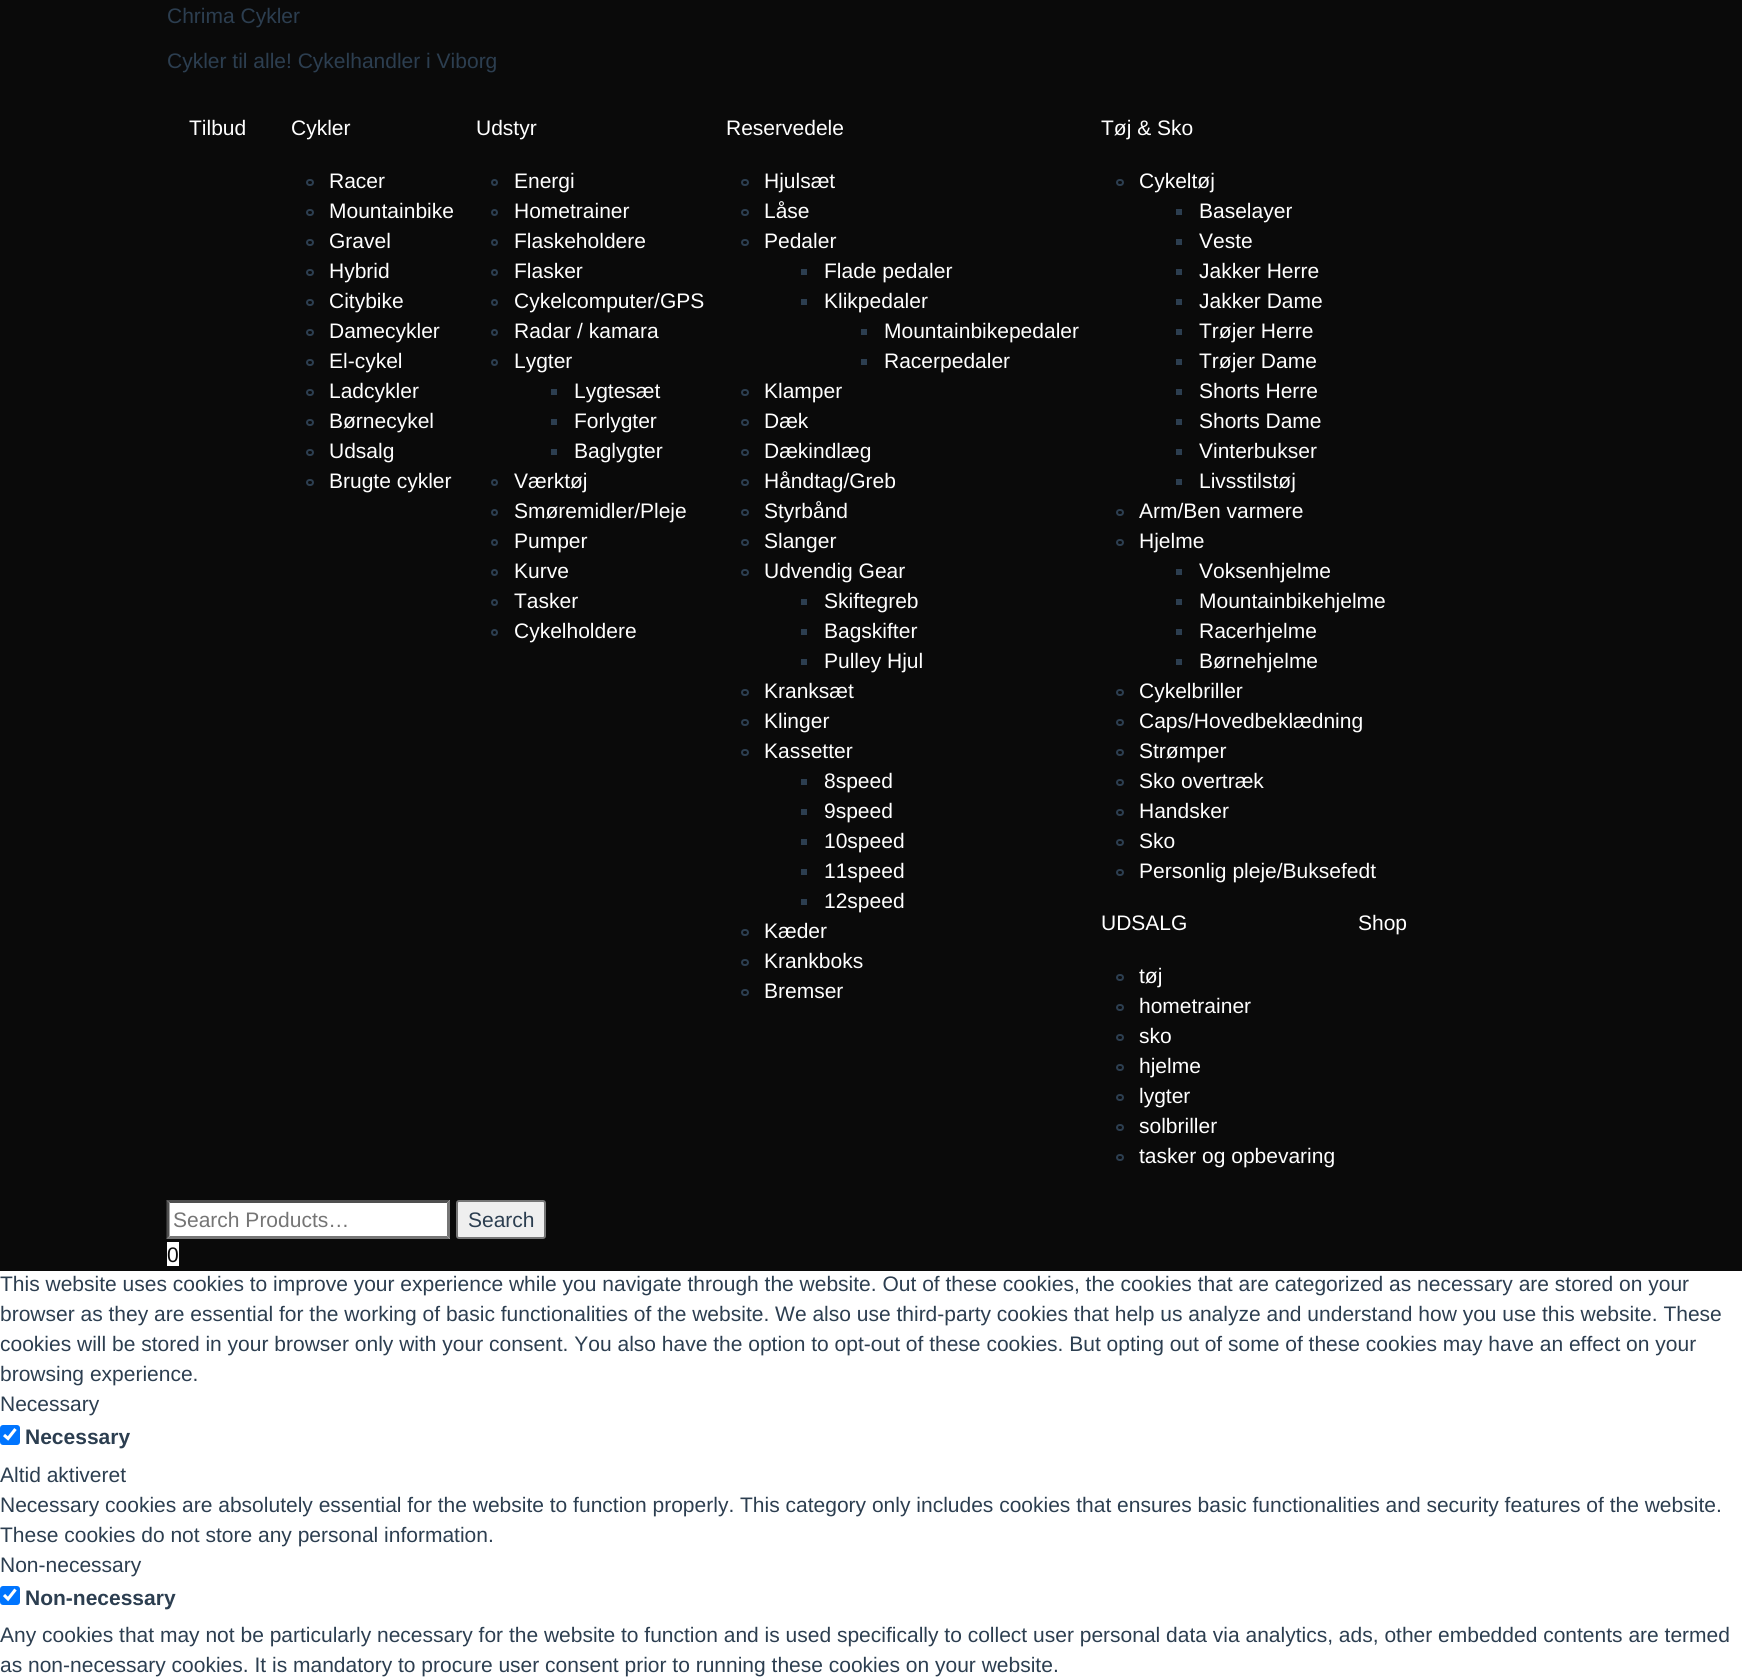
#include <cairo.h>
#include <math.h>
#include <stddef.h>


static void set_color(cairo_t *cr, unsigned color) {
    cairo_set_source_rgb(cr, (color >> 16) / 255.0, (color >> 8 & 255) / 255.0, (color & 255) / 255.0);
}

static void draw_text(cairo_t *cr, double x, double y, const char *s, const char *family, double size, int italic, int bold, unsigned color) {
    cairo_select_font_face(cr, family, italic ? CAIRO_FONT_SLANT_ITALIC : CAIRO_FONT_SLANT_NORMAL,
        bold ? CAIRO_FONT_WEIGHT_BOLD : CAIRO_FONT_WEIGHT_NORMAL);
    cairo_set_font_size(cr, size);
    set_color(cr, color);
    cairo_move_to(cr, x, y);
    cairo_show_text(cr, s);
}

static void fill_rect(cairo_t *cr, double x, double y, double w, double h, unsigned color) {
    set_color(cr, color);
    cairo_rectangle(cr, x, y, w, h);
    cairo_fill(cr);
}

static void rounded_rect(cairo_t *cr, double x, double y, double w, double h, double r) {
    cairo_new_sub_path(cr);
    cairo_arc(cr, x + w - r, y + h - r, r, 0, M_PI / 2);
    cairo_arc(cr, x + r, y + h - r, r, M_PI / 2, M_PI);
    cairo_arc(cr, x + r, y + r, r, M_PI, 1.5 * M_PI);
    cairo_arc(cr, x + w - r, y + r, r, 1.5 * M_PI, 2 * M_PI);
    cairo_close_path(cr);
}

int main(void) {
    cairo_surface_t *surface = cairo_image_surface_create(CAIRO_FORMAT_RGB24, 1742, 1677);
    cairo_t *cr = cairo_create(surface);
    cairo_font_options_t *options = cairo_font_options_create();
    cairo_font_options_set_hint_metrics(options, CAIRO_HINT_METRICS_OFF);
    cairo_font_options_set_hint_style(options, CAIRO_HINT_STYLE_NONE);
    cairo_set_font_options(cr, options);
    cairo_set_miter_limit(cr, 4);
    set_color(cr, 0xFFFFFF);
    cairo_paint(cr);
    fill_rect(cr, 0, 0, 1742, 1271, 0x0A0A0A);
    draw_text(cr, 167, 23, "Chrima Cykler", "Liberation Sans", 21, 0, 0, 0x2C3E50);
    draw_text(cr, 167, 68, "Cykler til alle! Cykelhandler i Viborg", "Liberation Sans", 21, 0, 0, 0x2C3E50);
    draw_text(cr, 189, 135, "Tilbud", "Liberation Sans", 21, 0, 0, 0xFFFFFF);
    draw_text(cr, 291, 135, "Cykler", "Liberation Sans", 21, 0, 0, 0xFFFFFF);
    rounded_rect(cr, 307, 180, 6, 5, 2.5);
    set_color(cr, 0x2C3E50);
    cairo_stroke(cr);
    draw_text(cr, 329, 188, "Racer", "Liberation Sans", 21, 0, 0, 0xFFFFFF);
    rounded_rect(cr, 307, 210, 6, 5, 2.5);
    set_color(cr, 0x2C3E50);
    cairo_stroke(cr);
    draw_text(cr, 329, 218, "Mountainbike", "Liberation Sans", 21, 0, 0, 0xFFFFFF);
    rounded_rect(cr, 307, 240, 6, 5, 2.5);
    set_color(cr, 0x2C3E50);
    cairo_stroke(cr);
    draw_text(cr, 329, 248, "Gravel", "Liberation Sans", 21, 0, 0, 0xFFFFFF);
    rounded_rect(cr, 307, 270, 6, 5, 2.5);
    set_color(cr, 0x2C3E50);
    cairo_stroke(cr);
    draw_text(cr, 329, 278, "Hybrid", "Liberation Sans", 21, 0, 0, 0xFFFFFF);
    rounded_rect(cr, 307, 300, 6, 5, 2.5);
    set_color(cr, 0x2C3E50);
    cairo_stroke(cr);
    draw_text(cr, 329, 308, "Citybike", "Liberation Sans", 21, 0, 0, 0xFFFFFF);
    rounded_rect(cr, 307, 330, 6, 5, 2.5);
    set_color(cr, 0x2C3E50);
    cairo_stroke(cr);
    draw_text(cr, 329, 338, "Damecykler", "Liberation Sans", 21, 0, 0, 0xFFFFFF);
    rounded_rect(cr, 307, 360, 6, 5, 2.5);
    set_color(cr, 0x2C3E50);
    cairo_stroke(cr);
    draw_text(cr, 329, 368, "El-cykel", "Liberation Sans", 21, 0, 0, 0xFFFFFF);
    rounded_rect(cr, 307, 390, 6, 5, 2.5);
    set_color(cr, 0x2C3E50);
    cairo_stroke(cr);
    draw_text(cr, 329, 398, "Ladcykler", "Liberation Sans", 21, 0, 0, 0xFFFFFF);
    rounded_rect(cr, 307, 420, 6, 5, 2.5);
    set_color(cr, 0x2C3E50);
    cairo_stroke(cr);
    draw_text(cr, 329, 428, "Børnecykel", "Liberation Sans", 21, 0, 0, 0xFFFFFF);
    rounded_rect(cr, 307, 450, 6, 5, 2.5);
    set_color(cr, 0x2C3E50);
    cairo_stroke(cr);
    draw_text(cr, 329, 458, "Udsalg", "Liberation Sans", 21, 0, 0, 0xFFFFFF);
    rounded_rect(cr, 307, 480, 6, 5, 2.5);
    set_color(cr, 0x2C3E50);
    cairo_stroke(cr);
    draw_text(cr, 329, 488, "Brugte cykler", "Liberation Sans", 21, 0, 0, 0xFFFFFF);
    draw_text(cr, 476, 135, "Udstyr", "Liberation Sans", 21, 0, 0, 0xFFFFFF);
    cairo_new_path(cr);
    cairo_arc(cr, 494.5, 182.5, 2.5, 0, 2 * M_PI);
    set_color(cr, 0x2C3E50);
    cairo_stroke(cr);
    draw_text(cr, 514, 188, "Energi", "Liberation Sans", 21, 0, 0, 0xFFFFFF);
    cairo_new_path(cr);
    cairo_arc(cr, 494.5, 212.5, 2.5, 0, 2 * M_PI);
    set_color(cr, 0x2C3E50);
    cairo_stroke(cr);
    draw_text(cr, 514, 218, "Hometrainer", "Liberation Sans", 21, 0, 0, 0xFFFFFF);
    cairo_new_path(cr);
    cairo_arc(cr, 494.5, 242.5, 2.5, 0, 2 * M_PI);
    set_color(cr, 0x2C3E50);
    cairo_stroke(cr);
    draw_text(cr, 514, 248, "Flaskeholdere", "Liberation Sans", 21, 0, 0, 0xFFFFFF);
    cairo_new_path(cr);
    cairo_arc(cr, 494.5, 272.5, 2.5, 0, 2 * M_PI);
    set_color(cr, 0x2C3E50);
    cairo_stroke(cr);
    draw_text(cr, 514, 278, "Flasker", "Liberation Sans", 21, 0, 0, 0xFFFFFF);
    cairo_new_path(cr);
    cairo_arc(cr, 494.5, 302.5, 2.5, 0, 2 * M_PI);
    set_color(cr, 0x2C3E50);
    cairo_stroke(cr);
    draw_text(cr, 514, 308, "Cykelcomputer/GPS", "Liberation Sans", 21, 0, 0, 0xFFFFFF);
    cairo_new_path(cr);
    cairo_arc(cr, 494.5, 332.5, 2.5, 0, 2 * M_PI);
    set_color(cr, 0x2C3E50);
    cairo_stroke(cr);
    draw_text(cr, 514, 338, "Radar / kamara", "Liberation Sans", 21, 0, 0, 0xFFFFFF);
    cairo_new_path(cr);
    cairo_arc(cr, 494.5, 362.5, 2.5, 0, 2 * M_PI);
    set_color(cr, 0x2C3E50);
    cairo_stroke(cr);
    draw_text(cr, 514, 368, "Lygter", "Liberation Sans", 21, 0, 0, 0xFFFFFF);
    fill_rect(cr, 551, 389, 6, 6, 0x2C3E50);
    draw_text(cr, 574, 398, "Lygtesæt", "Liberation Sans", 21, 0, 0, 0xFFFFFF);
    fill_rect(cr, 551, 419, 6, 6, 0x2C3E50);
    draw_text(cr, 574, 428, "Forlygter", "Liberation Sans", 21, 0, 0, 0xFFFFFF);
    fill_rect(cr, 551, 449, 6, 6, 0x2C3E50);
    draw_text(cr, 574, 458, "Baglygter", "Liberation Sans", 21, 0, 0, 0xFFFFFF);
    cairo_new_path(cr);
    cairo_arc(cr, 494.5, 482.5, 2.5, 0, 2 * M_PI);
    set_color(cr, 0x2C3E50);
    cairo_stroke(cr);
    draw_text(cr, 514, 488, "Værktøj", "Liberation Sans", 21, 0, 0, 0xFFFFFF);
    cairo_new_path(cr);
    cairo_arc(cr, 494.5, 512.5, 2.5, 0, 2 * M_PI);
    set_color(cr, 0x2C3E50);
    cairo_stroke(cr);
    draw_text(cr, 514, 518, "Smøremidler/Pleje", "Liberation Sans", 21, 0, 0, 0xFFFFFF);
    cairo_new_path(cr);
    cairo_arc(cr, 494.5, 542.5, 2.5, 0, 2 * M_PI);
    set_color(cr, 0x2C3E50);
    cairo_stroke(cr);
    draw_text(cr, 514, 548, "Pumper", "Liberation Sans", 21, 0, 0, 0xFFFFFF);
    cairo_new_path(cr);
    cairo_arc(cr, 494.5, 572.5, 2.5, 0, 2 * M_PI);
    set_color(cr, 0x2C3E50);
    cairo_stroke(cr);
    draw_text(cr, 514, 578, "Kurve", "Liberation Sans", 21, 0, 0, 0xFFFFFF);
    cairo_new_path(cr);
    cairo_arc(cr, 494.5, 602.5, 2.5, 0, 2 * M_PI);
    set_color(cr, 0x2C3E50);
    cairo_stroke(cr);
    draw_text(cr, 514, 608, "Tasker", "Liberation Sans", 21, 0, 0, 0xFFFFFF);
    cairo_new_path(cr);
    cairo_arc(cr, 494.5, 632.5, 2.5, 0, 2 * M_PI);
    set_color(cr, 0x2C3E50);
    cairo_stroke(cr);
    draw_text(cr, 514, 638, "Cykelholdere", "Liberation Sans", 21, 0, 0, 0xFFFFFF);
    draw_text(cr, 726, 135, "Reservedele", "Liberation Sans", 21, 0, 0, 0xFFFFFF);
    rounded_rect(cr, 742, 180, 6, 5, 2.5);
    set_color(cr, 0x2C3E50);
    cairo_stroke(cr);
    draw_text(cr, 764, 188, "Hjulsæt", "Liberation Sans", 21, 0, 0, 0xFFFFFF);
    rounded_rect(cr, 742, 210, 6, 5, 2.5);
    set_color(cr, 0x2C3E50);
    cairo_stroke(cr);
    draw_text(cr, 764, 218, "Låse", "Liberation Sans", 21, 0, 0, 0xFFFFFF);
    rounded_rect(cr, 742, 240, 6, 5, 2.5);
    set_color(cr, 0x2C3E50);
    cairo_stroke(cr);
    draw_text(cr, 764, 248, "Pedaler", "Liberation Sans", 21, 0, 0, 0xFFFFFF);
    fill_rect(cr, 801, 269, 6, 6, 0x2C3E50);
    draw_text(cr, 824, 278, "Flade pedaler", "Liberation Sans", 21, 0, 0, 0xFFFFFF);
    fill_rect(cr, 801, 299, 6, 6, 0x2C3E50);
    draw_text(cr, 824, 308, "Klikpedaler", "Liberation Sans", 21, 0, 0, 0xFFFFFF);
    fill_rect(cr, 861, 329, 6, 6, 0x2C3E50);
    draw_text(cr, 884, 338, "Mountainbikepedaler", "Liberation Sans", 21, 0, 0, 0xFFFFFF);
    fill_rect(cr, 861, 359, 6, 6, 0x2C3E50);
    draw_text(cr, 884, 368, "Racerpedaler", "Liberation Sans", 21, 0, 0, 0xFFFFFF);
    rounded_rect(cr, 742, 390, 6, 5, 2.5);
    set_color(cr, 0x2C3E50);
    cairo_stroke(cr);
    draw_text(cr, 764, 398, "Klamper", "Liberation Sans", 21, 0, 0, 0xFFFFFF);
    rounded_rect(cr, 742, 420, 6, 5, 2.5);
    set_color(cr, 0x2C3E50);
    cairo_stroke(cr);
    draw_text(cr, 764, 428, "Dæk", "Liberation Sans", 21, 0, 0, 0xFFFFFF);
    rounded_rect(cr, 742, 450, 6, 5, 2.5);
    set_color(cr, 0x2C3E50);
    cairo_stroke(cr);
    draw_text(cr, 764, 458, "Dækindlæg", "Liberation Sans", 21, 0, 0, 0xFFFFFF);
    rounded_rect(cr, 742, 480, 6, 5, 2.5);
    set_color(cr, 0x2C3E50);
    cairo_stroke(cr);
    draw_text(cr, 764, 488, "Håndtag/Greb", "Liberation Sans", 21, 0, 0, 0xFFFFFF);
    rounded_rect(cr, 742, 510, 6, 5, 2.5);
    set_color(cr, 0x2C3E50);
    cairo_stroke(cr);
    draw_text(cr, 764, 518, "Styrbånd", "Liberation Sans", 21, 0, 0, 0xFFFFFF);
    rounded_rect(cr, 742, 540, 6, 5, 2.5);
    set_color(cr, 0x2C3E50);
    cairo_stroke(cr);
    draw_text(cr, 764, 548, "Slanger", "Liberation Sans", 21, 0, 0, 0xFFFFFF);
    rounded_rect(cr, 742, 570, 6, 5, 2.5);
    set_color(cr, 0x2C3E50);
    cairo_stroke(cr);
    draw_text(cr, 764, 578, "Udvendig Gear", "Liberation Sans", 21, 0, 0, 0xFFFFFF);
    fill_rect(cr, 801, 599, 6, 6, 0x2C3E50);
    draw_text(cr, 824, 608, "Skiftegreb", "Liberation Sans", 21, 0, 0, 0xFFFFFF);
    fill_rect(cr, 801, 629, 6, 6, 0x2C3E50);
    draw_text(cr, 824, 638, "Bagskifter", "Liberation Sans", 21, 0, 0, 0xFFFFFF);
    fill_rect(cr, 801, 659, 6, 6, 0x2C3E50);
    draw_text(cr, 824, 668, "Pulley Hjul", "Liberation Sans", 21, 0, 0, 0xFFFFFF);
    rounded_rect(cr, 742, 690, 6, 5, 2.5);
    set_color(cr, 0x2C3E50);
    cairo_stroke(cr);
    draw_text(cr, 764, 698, "Kranksæt", "Liberation Sans", 21, 0, 0, 0xFFFFFF);
    rounded_rect(cr, 742, 720, 6, 5, 2.5);
    set_color(cr, 0x2C3E50);
    cairo_stroke(cr);
    draw_text(cr, 764, 728, "Klinger", "Liberation Sans", 21, 0, 0, 0xFFFFFF);
    rounded_rect(cr, 742, 750, 6, 5, 2.5);
    set_color(cr, 0x2C3E50);
    cairo_stroke(cr);
    draw_text(cr, 764, 758, "Kassetter", "Liberation Sans", 21, 0, 0, 0xFFFFFF);
    fill_rect(cr, 801, 779, 6, 6, 0x2C3E50);
    draw_text(cr, 824, 788, "8speed", "Liberation Sans", 21, 0, 0, 0xFFFFFF);
    fill_rect(cr, 801, 809, 6, 6, 0x2C3E50);
    draw_text(cr, 824, 818, "9speed", "Liberation Sans", 21, 0, 0, 0xFFFFFF);
    fill_rect(cr, 801, 839, 6, 6, 0x2C3E50);
    draw_text(cr, 824, 848, "10speed", "Liberation Sans", 21, 0, 0, 0xFFFFFF);
    fill_rect(cr, 801, 869, 6, 6, 0x2C3E50);
    draw_text(cr, 824, 878, "11speed", "Liberation Sans", 21, 0, 0, 0xFFFFFF);
    fill_rect(cr, 801, 899, 6, 6, 0x2C3E50);
    draw_text(cr, 824, 908, "12speed", "Liberation Sans", 21, 0, 0, 0xFFFFFF);
    rounded_rect(cr, 742, 930, 6, 5, 2.5);
    set_color(cr, 0x2C3E50);
    cairo_stroke(cr);
    draw_text(cr, 764, 938, "Kæder", "Liberation Sans", 21, 0, 0, 0xFFFFFF);
    rounded_rect(cr, 742, 960, 6, 5, 2.5);
    set_color(cr, 0x2C3E50);
    cairo_stroke(cr);
    draw_text(cr, 764, 968, "Krankboks", "Liberation Sans", 21, 0, 0, 0xFFFFFF);
    rounded_rect(cr, 742, 990, 6, 5, 2.5);
    set_color(cr, 0x2C3E50);
    cairo_stroke(cr);
    draw_text(cr, 764, 998, "Bremser", "Liberation Sans", 21, 0, 0, 0xFFFFFF);
    draw_text(cr, 1101, 135, "Tøj & Sko", "Liberation Sans", 21, 0, 0, 0xFFFFFF);
    rounded_rect(cr, 1117, 180, 6, 5, 2.5);
    set_color(cr, 0x2C3E50);
    cairo_stroke(cr);
    draw_text(cr, 1139, 188, "Cykeltøj", "Liberation Sans", 21, 0, 0, 0xFFFFFF);
    fill_rect(cr, 1176, 209, 6, 6, 0x2C3E50);
    draw_text(cr, 1199, 218, "Baselayer", "Liberation Sans", 21, 0, 0, 0xFFFFFF);
    fill_rect(cr, 1176, 239, 6, 6, 0x2C3E50);
    draw_text(cr, 1199, 248, "Veste", "Liberation Sans", 21, 0, 0, 0xFFFFFF);
    fill_rect(cr, 1176, 269, 6, 6, 0x2C3E50);
    draw_text(cr, 1199, 278, "Jakker Herre", "Liberation Sans", 21, 0, 0, 0xFFFFFF);
    fill_rect(cr, 1176, 299, 6, 6, 0x2C3E50);
    draw_text(cr, 1199, 308, "Jakker Dame", "Liberation Sans", 21, 0, 0, 0xFFFFFF);
    fill_rect(cr, 1176, 329, 6, 6, 0x2C3E50);
    draw_text(cr, 1199, 338, "Trøjer Herre", "Liberation Sans", 21, 0, 0, 0xFFFFFF);
    fill_rect(cr, 1176, 359, 6, 6, 0x2C3E50);
    draw_text(cr, 1199, 368, "Trøjer Dame", "Liberation Sans", 21, 0, 0, 0xFFFFFF);
    fill_rect(cr, 1176, 389, 6, 6, 0x2C3E50);
    draw_text(cr, 1199, 398, "Shorts Herre", "Liberation Sans", 21, 0, 0, 0xFFFFFF);
    fill_rect(cr, 1176, 419, 6, 6, 0x2C3E50);
    draw_text(cr, 1199, 428, "Shorts Dame", "Liberation Sans", 21, 0, 0, 0xFFFFFF);
    fill_rect(cr, 1176, 449, 6, 6, 0x2C3E50);
    draw_text(cr, 1199, 458, "Vinterbukser", "Liberation Sans", 21, 0, 0, 0xFFFFFF);
    fill_rect(cr, 1176, 479, 6, 6, 0x2C3E50);
    draw_text(cr, 1199, 488, "Livsstilstøj", "Liberation Sans", 21, 0, 0, 0xFFFFFF);
    rounded_rect(cr, 1117, 510, 6, 5, 2.5);
    set_color(cr, 0x2C3E50);
    cairo_stroke(cr);
    draw_text(cr, 1139, 518, "Arm/Ben varmere", "Liberation Sans", 21, 0, 0, 0xFFFFFF);
    rounded_rect(cr, 1117, 540, 6, 5, 2.5);
    set_color(cr, 0x2C3E50);
    cairo_stroke(cr);
    draw_text(cr, 1139, 548, "Hjelme", "Liberation Sans", 21, 0, 0, 0xFFFFFF);
    fill_rect(cr, 1176, 569, 6, 6, 0x2C3E50);
    draw_text(cr, 1199, 578, "Voksenhjelme", "Liberation Sans", 21, 0, 0, 0xFFFFFF);
    fill_rect(cr, 1176, 599, 6, 6, 0x2C3E50);
    draw_text(cr, 1199, 608, "Mountainbikehjelme", "Liberation Sans", 21, 0, 0, 0xFFFFFF);
    fill_rect(cr, 1176, 629, 6, 6, 0x2C3E50);
    draw_text(cr, 1199, 638, "Racerhjelme", "Liberation Sans", 21, 0, 0, 0xFFFFFF);
    fill_rect(cr, 1176, 659, 6, 6, 0x2C3E50);
    draw_text(cr, 1199, 668, "Børnehjelme", "Liberation Sans", 21, 0, 0, 0xFFFFFF);
    rounded_rect(cr, 1117, 690, 6, 5, 2.5);
    set_color(cr, 0x2C3E50);
    cairo_stroke(cr);
    draw_text(cr, 1139, 698, "Cykelbriller", "Liberation Sans", 21, 0, 0, 0xFFFFFF);
    rounded_rect(cr, 1117, 720, 6, 5, 2.5);
    set_color(cr, 0x2C3E50);
    cairo_stroke(cr);
    draw_text(cr, 1139, 728, "Caps/Hovedbeklædning", "Liberation Sans", 21, 0, 0, 0xFFFFFF);
    rounded_rect(cr, 1117, 750, 6, 5, 2.5);
    set_color(cr, 0x2C3E50);
    cairo_stroke(cr);
    draw_text(cr, 1139, 758, "Strømper", "Liberation Sans", 21, 0, 0, 0xFFFFFF);
    rounded_rect(cr, 1117, 780, 6, 5, 2.5);
    set_color(cr, 0x2C3E50);
    cairo_stroke(cr);
    draw_text(cr, 1139, 788, "Sko overtræk", "Liberation Sans", 21, 0, 0, 0xFFFFFF);
    rounded_rect(cr, 1117, 810, 6, 5, 2.5);
    set_color(cr, 0x2C3E50);
    cairo_stroke(cr);
    draw_text(cr, 1139, 818, "Handsker", "Liberation Sans", 21, 0, 0, 0xFFFFFF);
    rounded_rect(cr, 1117, 840, 6, 5, 2.5);
    set_color(cr, 0x2C3E50);
    cairo_stroke(cr);
    draw_text(cr, 1139, 848, "Sko", "Liberation Sans", 21, 0, 0, 0xFFFFFF);
    rounded_rect(cr, 1117, 870, 6, 5, 2.5);
    set_color(cr, 0x2C3E50);
    cairo_stroke(cr);
    draw_text(cr, 1139, 878, "Personlig pleje/Buksefedt", "Liberation Sans", 21, 0, 0, 0xFFFFFF);
    draw_text(cr, 1101, 930, "UDSALG", "Liberation Sans", 21, 0, 0, 0xFFFFFF);
    rounded_rect(cr, 1117, 975, 6, 5, 2.5);
    set_color(cr, 0x2C3E50);
    cairo_stroke(cr);
    draw_text(cr, 1139, 983, "tøj", "Liberation Sans", 21, 0, 0, 0xFFFFFF);
    rounded_rect(cr, 1117, 1005, 6, 5, 2.5);
    set_color(cr, 0x2C3E50);
    cairo_stroke(cr);
    draw_text(cr, 1139, 1013, "hometrainer", "Liberation Sans", 21, 0, 0, 0xFFFFFF);
    rounded_rect(cr, 1117, 1035, 6, 5, 2.5);
    set_color(cr, 0x2C3E50);
    cairo_stroke(cr);
    draw_text(cr, 1139, 1043, "sko", "Liberation Sans", 21, 0, 0, 0xFFFFFF);
    rounded_rect(cr, 1117, 1065, 6, 5, 2.5);
    set_color(cr, 0x2C3E50);
    cairo_stroke(cr);
    draw_text(cr, 1139, 1073, "hjelme", "Liberation Sans", 21, 0, 0, 0xFFFFFF);
    rounded_rect(cr, 1117, 1095, 6, 5, 2.5);
    set_color(cr, 0x2C3E50);
    cairo_stroke(cr);
    draw_text(cr, 1139, 1103, "lygter", "Liberation Sans", 21, 0, 0, 0xFFFFFF);
    rounded_rect(cr, 1117, 1125, 6, 5, 2.5);
    set_color(cr, 0x2C3E50);
    cairo_stroke(cr);
    draw_text(cr, 1139, 1133, "solbriller", "Liberation Sans", 21, 0, 0, 0xFFFFFF);
    rounded_rect(cr, 1117, 1155, 6, 5, 2.5);
    set_color(cr, 0x2C3E50);
    cairo_stroke(cr);
    draw_text(cr, 1139, 1163, "tasker og opbevaring", "Liberation Sans", 21, 0, 0, 0xFFFFFF);
    draw_text(cr, 1358, 930, "Shop", "Liberation Sans", 21, 0, 0, 0xFFFFFF);
    fill_rect(cr, 167, 1200, 283, 39, 0xFFFFFF);
    set_color(cr, 0x4F4F4F);
    cairo_new_path(cr);
    cairo_move_to(cr, 166, 1200);
    cairo_line_to(cr, 450, 1200);
    cairo_line_to(cr, 447, 1203);
    cairo_line_to(cr, 170, 1203);
    cairo_close_path(cr);
    cairo_fill(cr);
    set_color(cr, 0x767676);
    cairo_new_path(cr);
    cairo_move_to(cr, 450, 1200);
    cairo_line_to(cr, 450, 1239);
    cairo_line_to(cr, 447, 1236);
    cairo_line_to(cr, 447, 1203);
    cairo_close_path(cr);
    cairo_fill(cr);
    cairo_new_path(cr);
    cairo_move_to(cr, 450, 1239);
    cairo_line_to(cr, 166, 1239);
    cairo_line_to(cr, 170, 1236);
    cairo_line_to(cr, 447, 1236);
    cairo_close_path(cr);
    cairo_fill(cr);
    set_color(cr, 0x4F4F4F);
    cairo_new_path(cr);
    cairo_move_to(cr, 166.5, 1239);
    cairo_line_to(cr, 166.5, 1200);
    cairo_line_to(cr, 169.5, 1203);
    cairo_line_to(cr, 169.5, 1236);
    cairo_close_path(cr);
    cairo_fill(cr);
    draw_text(cr, 173, 1227, "Search Products…", "Liberation Sans", 21, 0, 0, 0x757575);
    set_color(cr, 0xEFEFEF);
    rounded_rect(cr, 457, 1201, 88, 37, 2);
    cairo_fill_preserve(cr);
    set_color(cr, 0x767676);
    cairo_stroke(cr);
    draw_text(cr, 468, 1227, "Search", "Liberation Sans", 21, 0, 0, 0x2C3E50);
    fill_rect(cr, 167, 1242, 12, 24, 0xFFFFFF);
    draw_text(cr, 167, 1262, "0", "Liberation Sans", 21, 0, 0, 0x0A0A0A);
    draw_text(cr, 0, 1291, "This website uses cookies to improve your experience while you navigate through the website. Out of these cookies, the cookies that are categorized as necessary are stored on your", "Liberation Sans", 21, 0, 0, 0x2C3E50);
    draw_text(cr, 0, 1321, "browser as they are essential for the working of basic functionalities of the website. We also use third-party cookies that help us analyze and understand how you use this website. These", "Liberation Sans", 21, 0, 0, 0x2C3E50);
    draw_text(cr, 0, 1351, "cookies will be stored in your browser only with your consent. You also have the option to opt-out of these cookies. But opting out of some of these cookies may have an effect on your", "Liberation Sans", 21, 0, 0, 0x2C3E50);
    draw_text(cr, 0, 1381, "browsing experience.", "Liberation Sans", 21, 0, 0, 0x2C3E50);
    draw_text(cr, 0, 1411, "Necessary", "Liberation Sans", 21, 0, 0, 0x2C3E50);
    set_color(cr, 0x0075FF);
    rounded_rect(cr, 0, 1425, 20, 20, 3);
    cairo_fill(cr);
    cairo_new_path(cr);
    cairo_move_to(cr, 4, 1435);
    cairo_line_to(cr, 8, 1438.5);
    cairo_line_to(cr, 15.5, 1429);
    set_color(cr, 0xFFFFFF);
    cairo_set_line_width(cr, 3.1);
    cairo_stroke(cr);
    draw_text(cr, 25, 1444, "Necessary", "Liberation Sans", 21, 0, 1, 0x2C3E50);
    draw_text(cr, 0, 1482, "Altid aktiveret", "Liberation Sans", 21, 0, 0, 0x2C3E50);
    draw_text(cr, 0, 1512, "Necessary cookies are absolutely essential for the website to function properly. This category only includes cookies that ensures basic functionalities and security features of the website.", "Liberation Sans", 21, 0, 0, 0x2C3E50);
    draw_text(cr, 0, 1542, "These cookies do not store any personal information.", "Liberation Sans", 21, 0, 0, 0x2C3E50);
    draw_text(cr, 0, 1572, "Non-necessary", "Liberation Sans", 21, 0, 0, 0x2C3E50);
    set_color(cr, 0x0075FF);
    rounded_rect(cr, 0, 1586, 20, 19, 3);
    cairo_fill(cr);
    cairo_new_path(cr);
    cairo_move_to(cr, 4, 1595);
    cairo_line_to(cr, 8, 1599);
    cairo_line_to(cr, 15.5, 1589.5);
    set_color(cr, 0xFFFFFF);
    cairo_stroke(cr);
    draw_text(cr, 25, 1605, "Non-necessary", "Liberation Sans", 21, 0, 1, 0x2C3E50);
    draw_text(cr, 0, 1642, "Any cookies that may not be particularly necessary for the website to function and is used specifically to collect user personal data via analytics, ads, other embedded contents are termed", "Liberation Sans", 21, 0, 0, 0x2C3E50);
    draw_text(cr, 0, 1672, "as non-necessary cookies. It is mandatory to procure user consent prior to running these cookies on your website.", "Liberation Sans", 21, 0, 0, 0x2C3E50);
    cairo_surface_write_to_png(surface, "output.png");
    cairo_font_options_destroy(options);
    cairo_destroy(cr);
    cairo_surface_destroy(surface);
    return 0;
}
